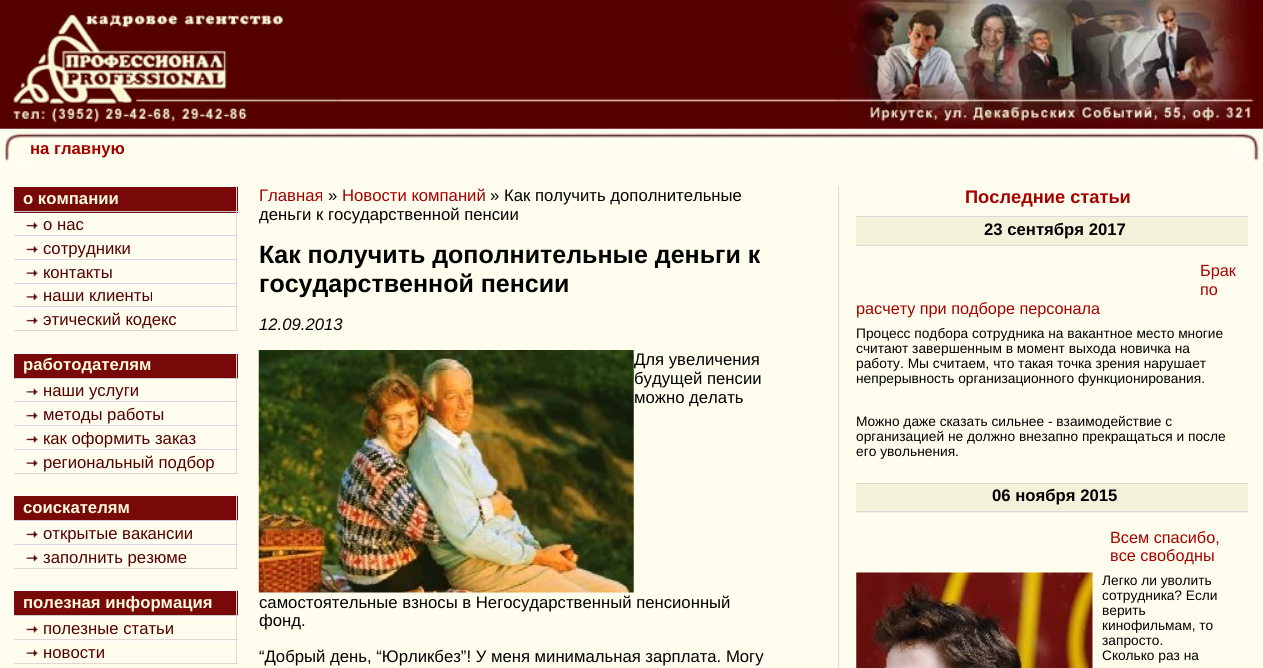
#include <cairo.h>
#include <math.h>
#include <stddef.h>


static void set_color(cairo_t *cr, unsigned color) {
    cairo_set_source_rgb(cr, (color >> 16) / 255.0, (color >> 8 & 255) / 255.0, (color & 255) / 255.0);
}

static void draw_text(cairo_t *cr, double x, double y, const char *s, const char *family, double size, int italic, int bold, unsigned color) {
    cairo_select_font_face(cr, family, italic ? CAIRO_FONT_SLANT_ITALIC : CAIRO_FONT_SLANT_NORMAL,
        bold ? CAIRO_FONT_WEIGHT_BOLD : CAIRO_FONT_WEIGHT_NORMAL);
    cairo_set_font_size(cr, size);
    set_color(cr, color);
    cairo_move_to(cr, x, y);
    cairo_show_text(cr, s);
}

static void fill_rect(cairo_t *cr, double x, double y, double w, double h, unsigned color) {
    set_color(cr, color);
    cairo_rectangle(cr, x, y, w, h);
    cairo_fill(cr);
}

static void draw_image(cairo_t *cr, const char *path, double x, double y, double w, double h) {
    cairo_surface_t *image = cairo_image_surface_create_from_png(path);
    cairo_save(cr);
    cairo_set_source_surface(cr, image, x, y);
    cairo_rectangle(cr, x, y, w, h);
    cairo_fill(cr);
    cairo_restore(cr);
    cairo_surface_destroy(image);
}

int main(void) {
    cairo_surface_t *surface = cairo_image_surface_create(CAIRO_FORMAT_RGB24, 1263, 668);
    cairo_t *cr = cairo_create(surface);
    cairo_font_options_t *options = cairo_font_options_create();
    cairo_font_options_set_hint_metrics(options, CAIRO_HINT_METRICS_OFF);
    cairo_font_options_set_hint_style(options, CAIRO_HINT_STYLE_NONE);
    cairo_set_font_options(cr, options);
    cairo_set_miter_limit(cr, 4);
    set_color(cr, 0xFFFEEE);
    cairo_paint(cr);
    fill_rect(cr, 0, 0, 1263, 129, 0x550000);
    draw_image(cr, "assets/img2.png", 337, 98, 502, 9);
    draw_image(cr, "assets/img1.png", 10, 10, 328, 115);
    draw_image(cr, "assets/img3.png", 838, 0, 416, 125);
    draw_image(cr, "assets/img4.png", 0, 128, 30, 35);
    draw_image(cr, "assets/img5.png", 30, 128, 1204, 10);
    draw_text(cr, 30, 154, "на главную", "Liberation Sans", 16.7, 0, 1, 0xA50000);
    draw_image(cr, "assets/img6.png", 1233, 128, 30, 34);
    fill_rect(cr, 14, 187, 224, 26, 0x790909);
    fill_rect(cr, 13, 186, 225, 1, 0xFFFFFF);
    fill_rect(cr, 236, 186, 1, 27, 0xCCCCCC);
    fill_rect(cr, 13, 211, 225, 1, 0xCCCCCC);
    fill_rect(cr, 13, 186, 1, 27, 0xFFFFFF);
    draw_text(cr, 23, 204, "о компании", "Liberation Sans", 16.7, 0, 1, 0xFEFCDD);
    fill_rect(cr, 13, 213, 225, 1, 0xFFFFFF);
    fill_rect(cr, 236, 213, 1, 23, 0xDBDBDB);
    fill_rect(cr, 13, 235, 225, 1, 0xE3D5D5);
    fill_rect(cr, 13, 213, 1, 23, 0xFFFEEE);
    draw_image(cr, "assets/img7.png", 26, 222, 12, 7);
    draw_text(cr, 43, 230, "о нас", "Liberation Sans", 16.7, 0, 0, 0x550000);
    fill_rect(cr, 13, 236, 225, 1, 0xFFFFFF);
    fill_rect(cr, 236, 236, 1, 24, 0xDBDBDB);
    fill_rect(cr, 13, 259, 225, 1, 0xE3D5D5);
    fill_rect(cr, 13, 236, 1, 24, 0xFFFEEE);
    draw_image(cr, "assets/img8.png", 26, 246, 12, 7);
    draw_text(cr, 43, 254, "сотрудники", "Liberation Sans", 16.7, 0, 0, 0x550000);
    fill_rect(cr, 13, 260, 225, 1, 0xFFFFFF);
    fill_rect(cr, 236, 260, 1, 24, 0xDBDBDB);
    fill_rect(cr, 13, 283, 225, 1, 0xE3D5D5);
    fill_rect(cr, 13, 260, 1, 24, 0xFFFEEE);
    draw_image(cr, "assets/img9.png", 26, 269, 12, 8);
    draw_text(cr, 43, 278, "контакты", "Liberation Sans", 16.7, 0, 0, 0x550000);
    fill_rect(cr, 13, 284, 225, 1, 0xFFFFFF);
    fill_rect(cr, 236, 284, 1, 24, 0xDBDBDB);
    fill_rect(cr, 13, 306, 225, 1, 0xE3D5D5);
    fill_rect(cr, 13, 284, 1, 24, 0xFFFEEE);
    draw_image(cr, "assets/img10.png", 26, 293, 12, 7);
    draw_text(cr, 43, 301, "наши клиенты", "Liberation Sans", 16.7, 0, 0, 0x550000);
    fill_rect(cr, 13, 308, 225, 1, 0xFFFFFF);
    fill_rect(cr, 236, 308, 1, 23, 0xDBDBDB);
    fill_rect(cr, 13, 330, 225, 1, 0xE3D5D5);
    fill_rect(cr, 13, 308, 1, 23, 0xFFFEEE);
    draw_image(cr, "assets/img7.png", 26, 317, 12, 7);
    draw_text(cr, 43, 325, "этический кодекс", "Liberation Sans", 16.7, 0, 0, 0x550000);
    fill_rect(cr, 14, 354, 224, 24, 0x790909);
    fill_rect(cr, 13, 353, 225, 1, 0xFFFFFF);
    fill_rect(cr, 236, 353, 1, 26, 0xCCCCCC);
    fill_rect(cr, 13, 378, 225, 1, 0xCCCCCC);
    fill_rect(cr, 13, 353, 1, 26, 0xFFFFFF);
    draw_text(cr, 23, 370, "работодателям", "Liberation Sans", 16.7, 0, 1, 0xFEFCDD);
    fill_rect(cr, 13, 379, 225, 1, 0xFFFFFF);
    fill_rect(cr, 236, 379, 1, 24, 0xDBDBDB);
    fill_rect(cr, 13, 401, 225, 1, 0xE3D5D5);
    fill_rect(cr, 13, 379, 1, 24, 0xFFFEEE);
    draw_image(cr, "assets/img11.png", 26, 388, 12, 7);
    draw_text(cr, 43, 396, "наши услуги", "Liberation Sans", 16.7, 0, 0, 0x550000);
    fill_rect(cr, 13, 403, 225, 1, 0xFFFFFF);
    fill_rect(cr, 236, 403, 1, 23, 0xDBDBDB);
    fill_rect(cr, 13, 425, 225, 1, 0xE3D5D5);
    fill_rect(cr, 13, 403, 1, 23, 0xFFFEEE);
    draw_image(cr, "assets/img7.png", 26, 412, 12, 7);
    draw_text(cr, 43, 420, "методы работы", "Liberation Sans", 16.7, 0, 0, 0x550000);
    fill_rect(cr, 13, 426, 225, 1, 0xFFFFFF);
    fill_rect(cr, 236, 426, 1, 24, 0xDBDBDB);
    fill_rect(cr, 13, 449, 225, 1, 0xE3D5D5);
    fill_rect(cr, 13, 426, 1, 24, 0xFFFEEE);
    draw_image(cr, "assets/img8.png", 26, 436, 12, 7);
    draw_text(cr, 43, 444, "как оформить заказ", "Liberation Sans", 16.7, 0, 0, 0x550000);
    fill_rect(cr, 13, 450, 225, 1, 0xFFFFFF);
    fill_rect(cr, 236, 450, 1, 24, 0xDBDBDB);
    fill_rect(cr, 13, 473, 225, 1, 0xE3D5D5);
    fill_rect(cr, 13, 450, 1, 24, 0xFFFEEE);
    draw_image(cr, "assets/img9.png", 26, 459, 12, 8);
    draw_text(cr, 43, 468, "региональный подбор", "Liberation Sans", 16.7, 0, 0, 0x550000);
    fill_rect(cr, 14, 496, 224, 24, 0x790909);
    fill_rect(cr, 13, 495, 225, 1, 0xFFFFFF);
    fill_rect(cr, 236, 495, 1, 26, 0xCCCCCC);
    fill_rect(cr, 13, 520, 225, 1, 0xCCCCCC);
    fill_rect(cr, 13, 495, 1, 26, 0xFFFFFF);
    draw_text(cr, 23, 513, "соискателям", "Liberation Sans", 16.7, 0, 1, 0xFEFCDD);
    fill_rect(cr, 13, 521, 225, 1, 0xFFFFFF);
    fill_rect(cr, 236, 521, 1, 24, 0xDBDBDB);
    fill_rect(cr, 13, 544, 225, 1, 0xE3D5D5);
    fill_rect(cr, 13, 521, 1, 24, 0xFFFEEE);
    draw_image(cr, "assets/img8.png", 26, 531, 12, 7);
    draw_text(cr, 43, 539, "открытые вакансии", "Liberation Sans", 16.7, 0, 0, 0x550000);
    fill_rect(cr, 13, 545, 225, 1, 0xFFFFFF);
    fill_rect(cr, 236, 545, 1, 24, 0xDBDBDB);
    fill_rect(cr, 13, 568, 225, 1, 0xE3D5D5);
    fill_rect(cr, 13, 545, 1, 24, 0xFFFEEE);
    draw_image(cr, "assets/img9.png", 26, 554, 12, 8);
    draw_text(cr, 43, 563, "заполнить резюме", "Liberation Sans", 16.7, 0, 0, 0x550000);
    fill_rect(cr, 14, 591, 224, 24, 0x790909);
    fill_rect(cr, 13, 590, 225, 1, 0xFFFFFF);
    fill_rect(cr, 236, 590, 1, 26, 0xCCCCCC);
    fill_rect(cr, 13, 615, 225, 1, 0xCCCCCC);
    fill_rect(cr, 13, 590, 1, 26, 0xFFFFFF);
    draw_text(cr, 23, 608, "полезная информация", "Liberation Sans", 16.7, 0, 1, 0xFEFCDD);
    fill_rect(cr, 13, 616, 225, 1, 0xFFFFFF);
    fill_rect(cr, 236, 616, 1, 24, 0xDBDBDB);
    fill_rect(cr, 13, 639, 225, 1, 0xE3D5D5);
    fill_rect(cr, 13, 616, 1, 24, 0xFFFEEE);
    draw_image(cr, "assets/img8.png", 26, 626, 12, 7);
    draw_text(cr, 43, 634, "полезные статьи", "Liberation Sans", 16.7, 0, 0, 0x550000);
    fill_rect(cr, 13, 640, 225, 1, 0xFFFFFF);
    fill_rect(cr, 236, 640, 1, 24, 0xDBDBDB);
    fill_rect(cr, 13, 663, 225, 1, 0xE3D5D5);
    fill_rect(cr, 13, 640, 1, 24, 0xFFFEEE);
    draw_image(cr, "assets/img9.png", 26, 649, 12, 8);
    draw_text(cr, 43, 658, "новости", "Liberation Sans", 16.7, 0, 0, 0x550000);
    draw_text(cr, 259, 201, "Главная", "Liberation Sans", 16.7, 0, 0, 0xA50000);
    draw_text(cr, 328, 201, "»", "Liberation Sans", 16.7, 0, 0, 0x000000);
    draw_text(cr, 342, 201, "Новости компаний", "Liberation Sans", 16.7, 0, 0, 0xA50000);
    draw_text(cr, 490, 201, "» Как получить дополнительные", "Liberation Sans", 16.7, 0, 0, 0x000000);
    draw_text(cr, 259, 220, "деньги к государственной пенсии", "Liberation Sans", 16.7, 0, 0, 0x000000);
    draw_text(cr, 259, 263, "Как получить дополнительные деньги к", "Liberation Sans", 25, 0, 1, 0x000000);
    draw_text(cr, 259, 292, "государственной пенсии", "Liberation Sans", 25, 0, 1, 0x000000);
    draw_text(cr, 259, 330, "12.09.2013", "Liberation Sans", 16.7, 1, 0, 0x000000);
    draw_image(cr, "assets/img12.png", 258, 350, 376, 243);
    draw_text(cr, 634, 365, "Для увеличения", "Liberation Sans", 16.7, 0, 0, 0x000000);
    draw_text(cr, 634, 384, "будущей пенсии", "Liberation Sans", 16.7, 0, 0, 0x000000);
    draw_text(cr, 634, 403, "можно делать", "Liberation Sans", 16.7, 0, 0, 0x000000);
    draw_text(cr, 259, 608, "самостоятельные взносы в Негосударственный пенсионный", "Liberation Sans", 16.7, 0, 0, 0x000000);
    draw_text(cr, 259, 626, "фонд.", "Liberation Sans", 16.7, 0, 0, 0x000000);
    draw_text(cr, 259, 662, "“Добрый день, “Юрликбез”! У меня минимальная зарплата. Могу", "Liberation Sans", 16.7, 0, 0, 0x000000);
    fill_rect(cr, 838, 186, 1, 482, 0xE3D5D5);
    draw_text(cr, 965, 203, "Последние статьи", "Liberation Sans", 18.25, 0, 1, 0xA50000);
    fill_rect(cr, 856, 217, 392, 28, 0xF2F1DA);
    fill_rect(cr, 856, 216, 392, 1, 0xE3D5D5);
    fill_rect(cr, 856, 245, 392, 1, 0xE3D5D5);
    draw_text(cr, 984, 235, "23 сентября 2017", "Liberation Sans", 16.7, 0, 1, 0x000000);
    draw_text(cr, 1200, 276, "Брак", "Liberation Sans", 16.25, 0, 0, 0xA50000);
    draw_text(cr, 1200, 295, "по", "Liberation Sans", 16.25, 0, 0, 0xA50000);
    draw_text(cr, 856, 314, "расчету при подборе персонала", "Liberation Sans", 16.25, 0, 0, 0xA50000);
    draw_text(cr, 856, 338, "Процесс подбора сотрудника на вакантное место многие", "Liberation Sans", 13.75, 0, 0, 0x000000);
    draw_text(cr, 856, 353, "считают завершенным в момент выхода новичка на", "Liberation Sans", 13.75, 0, 0, 0x000000);
    draw_text(cr, 856, 368, "работу. Мы считаем, что такая точка зрения нарушает", "Liberation Sans", 13.75, 0, 0, 0x000000);
    draw_text(cr, 856, 383, "непрерывность организационного функционирования.", "Liberation Sans", 13.75, 0, 0, 0x000000);
    draw_text(cr, 856, 426, "Можно даже сказать сильнее - взаимодействие с", "Liberation Sans", 13.75, 0, 0, 0x000000);
    draw_text(cr, 856, 441, "организацией не должно внезапно прекращаться и после", "Liberation Sans", 13.75, 0, 0, 0x000000);
    draw_text(cr, 856, 456, "его увольнения.", "Liberation Sans", 13.75, 0, 0, 0x000000);
    fill_rect(cr, 856, 484, 392, 29, 0xF2F1DA);
    fill_rect(cr, 856, 483, 392, 1, 0xE3D5D5);
    fill_rect(cr, 856, 511, 392, 1, 0xE3D5D5);
    draw_text(cr, 992, 501, "06 ноября 2015", "Liberation Sans", 16.7, 0, 1, 0x000000);
    draw_text(cr, 1110, 543, "Всем спасибо,", "Liberation Sans", 16.25, 0, 0, 0xA50000);
    draw_text(cr, 1110, 561, "все свободны", "Liberation Sans", 16.25, 0, 0, 0xA50000);
    draw_image(cr, "assets/img13.png", 856, 572, 237, 96);
    draw_text(cr, 1102, 585, "Легко ли уволить", "Liberation Sans", 13.75, 0, 0, 0x000000);
    draw_text(cr, 1102, 600, "сотрудника? Если", "Liberation Sans", 13.75, 0, 0, 0x000000);
    draw_text(cr, 1102, 615, "верить", "Liberation Sans", 13.75, 0, 0, 0x000000);
    draw_text(cr, 1102, 630, "кинофильмам, то", "Liberation Sans", 13.75, 0, 0, 0x000000);
    draw_text(cr, 1102, 645, "запросто.", "Liberation Sans", 13.75, 0, 0, 0x000000);
    draw_text(cr, 1102, 660, "Сколько раз на", "Liberation Sans", 13.75, 0, 0, 0x000000);
    cairo_surface_write_to_png(surface, "output.png");
    cairo_font_options_destroy(options);
    cairo_destroy(cr);
    cairo_surface_destroy(surface);
    return 0;
}
